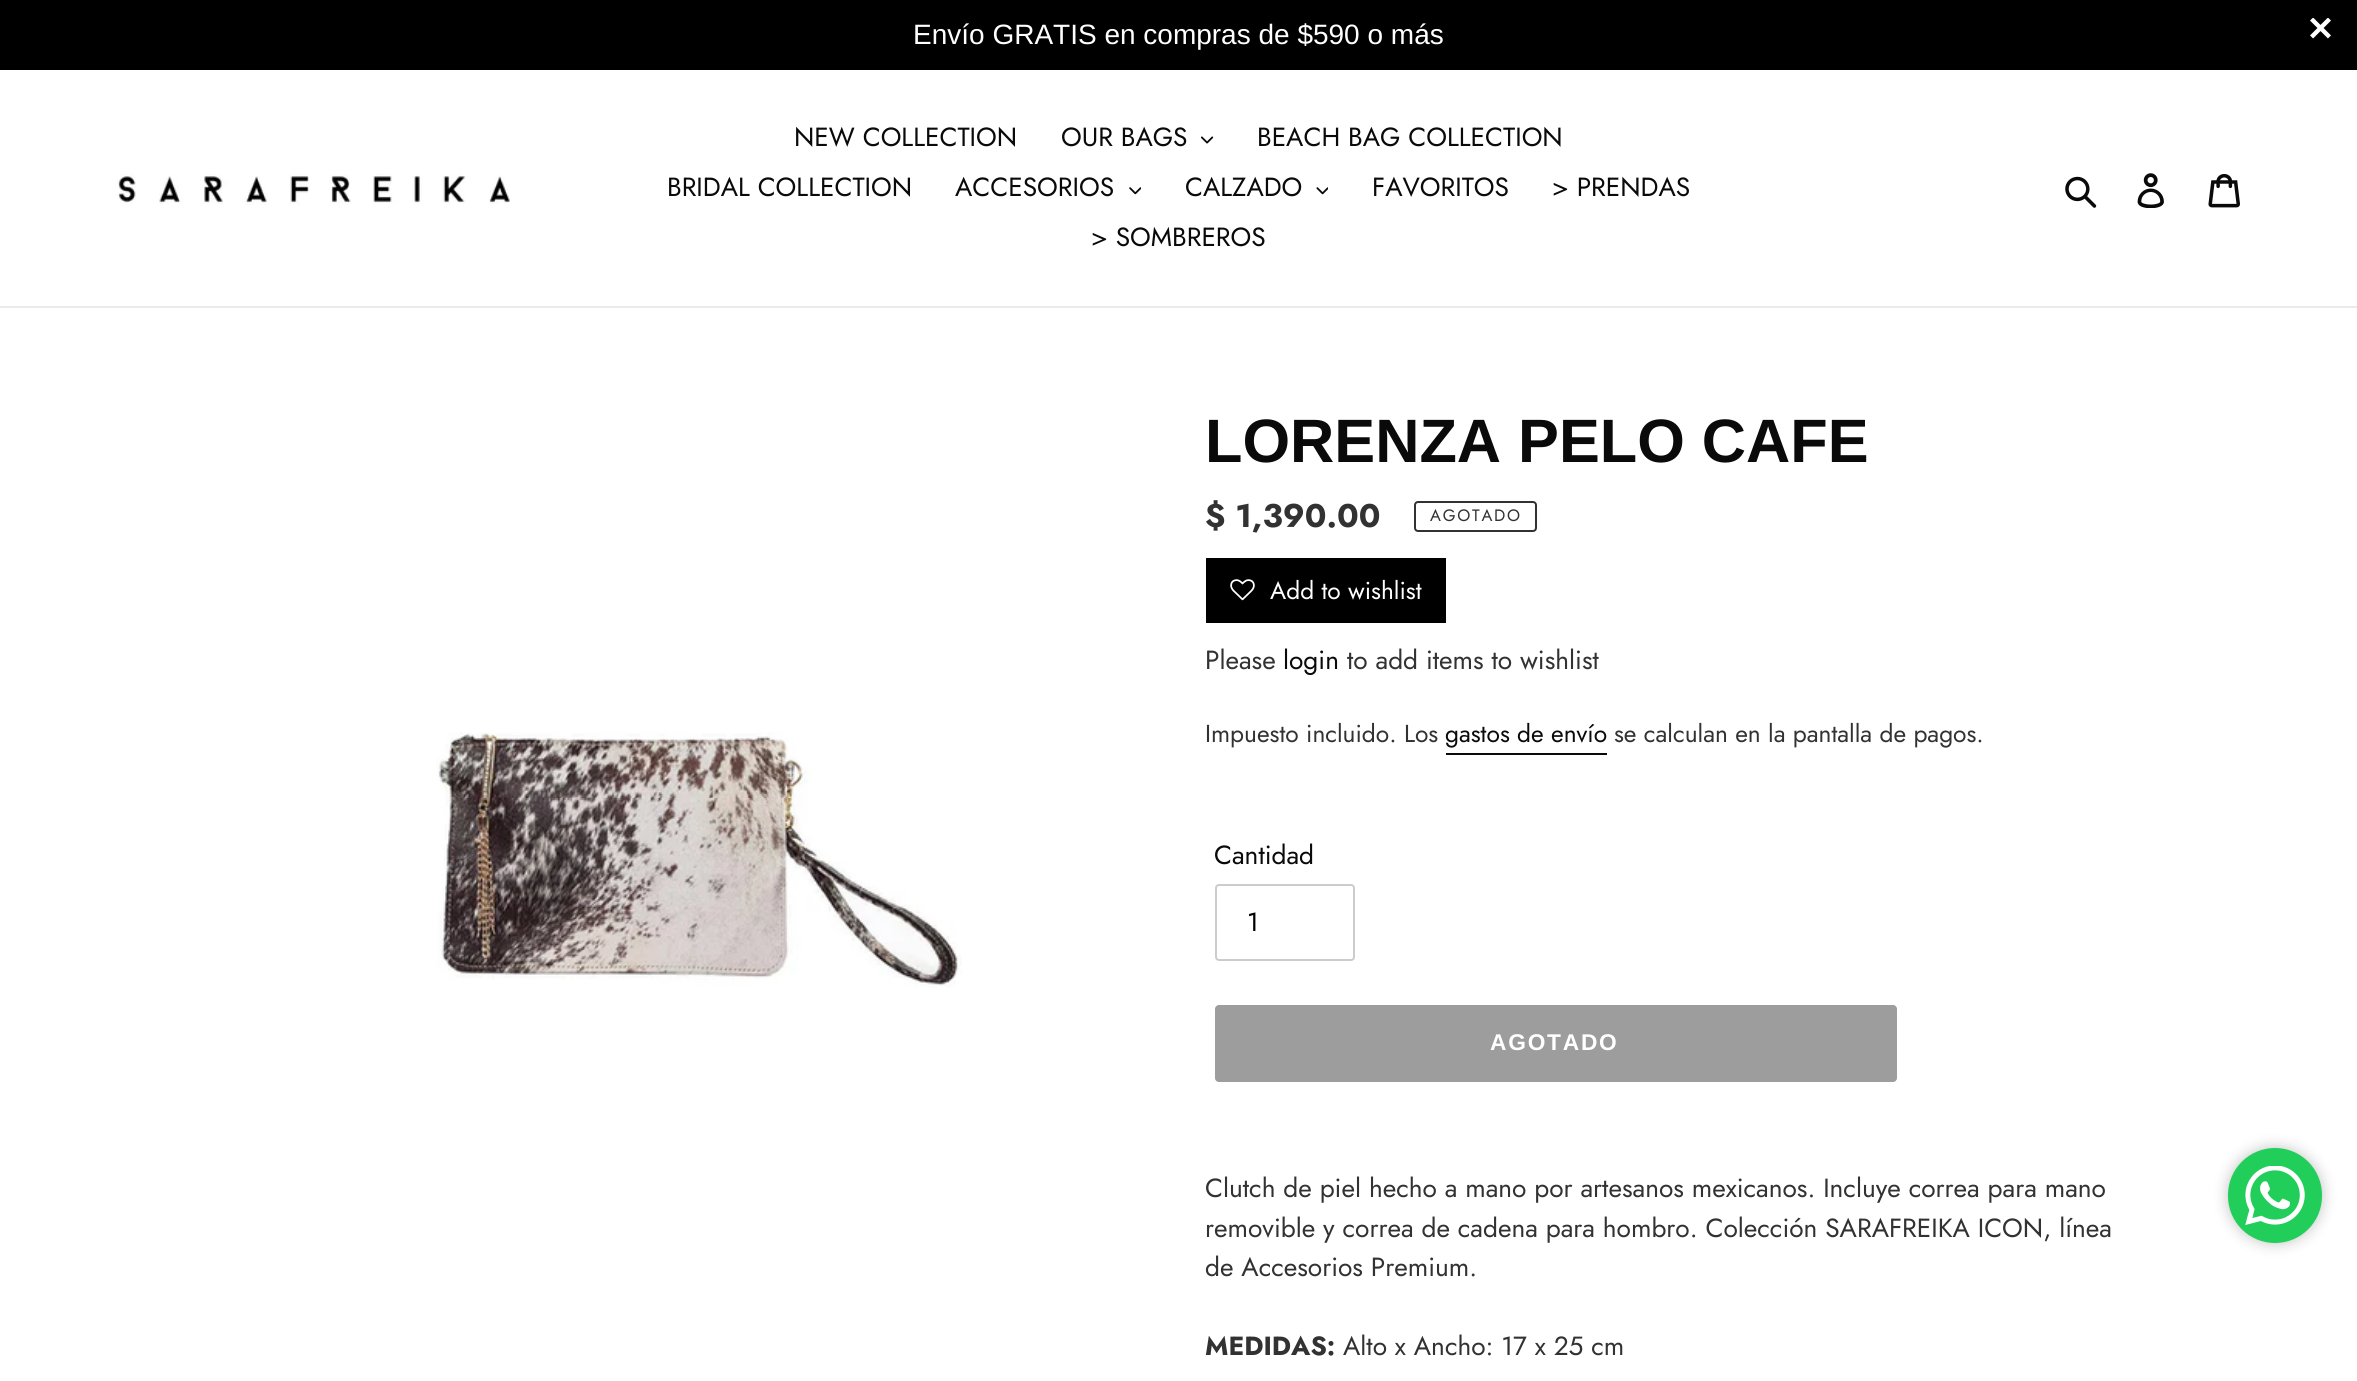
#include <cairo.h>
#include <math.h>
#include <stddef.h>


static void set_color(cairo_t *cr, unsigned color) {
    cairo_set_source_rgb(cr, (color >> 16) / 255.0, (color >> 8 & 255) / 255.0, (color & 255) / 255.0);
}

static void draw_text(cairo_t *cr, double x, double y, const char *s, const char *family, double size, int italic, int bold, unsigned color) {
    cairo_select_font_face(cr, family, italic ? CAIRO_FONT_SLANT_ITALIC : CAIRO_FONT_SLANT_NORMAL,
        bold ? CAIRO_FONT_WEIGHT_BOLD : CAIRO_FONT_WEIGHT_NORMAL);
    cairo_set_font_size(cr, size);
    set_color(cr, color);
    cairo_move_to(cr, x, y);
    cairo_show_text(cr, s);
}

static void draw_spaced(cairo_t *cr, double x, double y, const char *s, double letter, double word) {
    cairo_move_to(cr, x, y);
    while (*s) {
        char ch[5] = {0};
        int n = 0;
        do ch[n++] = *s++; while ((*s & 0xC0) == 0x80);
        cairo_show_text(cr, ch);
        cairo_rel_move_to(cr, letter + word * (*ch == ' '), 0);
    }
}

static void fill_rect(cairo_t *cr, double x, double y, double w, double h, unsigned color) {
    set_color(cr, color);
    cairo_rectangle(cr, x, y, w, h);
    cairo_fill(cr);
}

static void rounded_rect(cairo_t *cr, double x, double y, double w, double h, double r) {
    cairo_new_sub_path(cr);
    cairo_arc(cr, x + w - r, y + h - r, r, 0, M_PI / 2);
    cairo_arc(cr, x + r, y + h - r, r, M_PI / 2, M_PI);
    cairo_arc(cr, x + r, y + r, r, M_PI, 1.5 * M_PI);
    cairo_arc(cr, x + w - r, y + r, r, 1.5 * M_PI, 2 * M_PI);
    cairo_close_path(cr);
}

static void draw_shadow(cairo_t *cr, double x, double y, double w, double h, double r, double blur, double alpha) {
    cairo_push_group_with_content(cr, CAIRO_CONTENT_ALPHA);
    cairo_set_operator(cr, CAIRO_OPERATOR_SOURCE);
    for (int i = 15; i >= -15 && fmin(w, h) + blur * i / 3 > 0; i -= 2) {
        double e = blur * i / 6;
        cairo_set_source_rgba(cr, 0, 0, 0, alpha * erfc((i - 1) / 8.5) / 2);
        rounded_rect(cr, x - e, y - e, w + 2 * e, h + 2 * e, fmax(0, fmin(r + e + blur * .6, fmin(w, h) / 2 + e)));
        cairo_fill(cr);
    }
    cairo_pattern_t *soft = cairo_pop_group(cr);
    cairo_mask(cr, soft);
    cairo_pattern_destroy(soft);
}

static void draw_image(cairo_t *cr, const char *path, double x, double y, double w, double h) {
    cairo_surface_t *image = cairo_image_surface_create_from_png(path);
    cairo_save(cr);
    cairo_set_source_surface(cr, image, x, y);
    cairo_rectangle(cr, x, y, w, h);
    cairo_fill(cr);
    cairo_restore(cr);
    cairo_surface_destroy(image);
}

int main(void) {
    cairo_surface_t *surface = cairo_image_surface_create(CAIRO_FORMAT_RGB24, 2357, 1381);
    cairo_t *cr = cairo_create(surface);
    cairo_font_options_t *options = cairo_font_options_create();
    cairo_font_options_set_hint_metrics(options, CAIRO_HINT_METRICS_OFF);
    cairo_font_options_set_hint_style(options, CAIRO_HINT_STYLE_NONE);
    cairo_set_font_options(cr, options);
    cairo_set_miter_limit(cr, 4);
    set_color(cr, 0xFFFFFF);
    cairo_paint(cr);
    fill_rect(cr, 0, 0, 2357, 70, 0x000000);
    draw_text(cr, 913, 44, "Envío GRATIS en compras de $590 o más", "Liberation Sans", 28, 0, 0, 0xFFFFFF);
    draw_image(cr, "assets/img1.png", 2310, 18, 21, 21);
    fill_rect(cr, 0, 306, 2357, 2, 0xEBEBEB);
    draw_image(cr, "assets/img2.png", 116, 174, 394, 31);
    draw_text(cr, 794, 146, "NEW COLLECTION", "Jost", 26.25, 0, 0, 0x0A0A0A);
    draw_text(cr, 1061, 146, "OUR BAGS", "Jost", 26.25, 0, 0, 0x0A0A0A);
    draw_image(cr, "assets/img3.png", 1201, 136, 13, 8);
    draw_text(cr, 1257, 146, "BEACH BAG COLLECTION", "Jost", 26.25, 0, 0, 0x0A0A0A);
    draw_text(cr, 667, 196, "BRIDAL COLLECTION", "Jost", 26.25, 0, 0, 0x0A0A0A);
    draw_text(cr, 955, 196, "ACCESORIOS", "Jost", 26.25, 0, 0, 0x0A0A0A);
    draw_image(cr, "assets/img4.png", 1129, 187, 12, 8);
    draw_text(cr, 1185, 196, "CALZADO", "Jost", 26.25, 0, 0, 0x0A0A0A);
    draw_image(cr, "assets/img5.png", 1316, 187, 12, 8);
    draw_text(cr, 1372, 196, "FAVORITOS", "Jost", 26.25, 0, 0, 0x0A0A0A);
    draw_text(cr, 1552, 196, "> PRENDAS", "Jost", 26.25, 0, 0, 0x0A0A0A);
    draw_text(cr, 1091, 246, "> SOMBREROS", "Jost", 26.25, 0, 0, 0x0A0A0A);
    draw_image(cr, "assets/img6.png", 2065, 176, 32, 32);
    draw_image(cr, "assets/img7.png", 2137, 173, 27, 35);
    draw_image(cr, "assets/img8.png", 2208, 173, 32, 35);
    draw_image(cr, "assets/img9.png", 436, 732, 526, 256);
    draw_text(cr, 1205, 462, "LORENZA PELO CAFE", "Liberation Sans", 61.25, 0, 1, 0x0A0A0A);
    draw_text(cr, 1205, 527, "$ 1,390.00", "Jost", 32.75, 0, 1, 0x333232);
    rounded_rect(cr, 1415, 502, 121, 29, 3);
    cairo_stroke(cr);
    cairo_select_font_face(cr, "Jost", CAIRO_FONT_SLANT_NORMAL, CAIRO_FONT_WEIGHT_NORMAL);
    cairo_set_font_size(cr, 16.5);
    draw_spaced(cr, 1430, 521, "AGOTADO", 1.75, 0);
    fill_rect(cr, 1206, 558, 240, 65, 0x000000);
    draw_image(cr, "assets/img10.png", 1230, 579, 25, 22);
    draw_text(cr, 1270, 599, "Add to wishlist", "Jost", 24.5, 0, 0, 0xFFFFFF);
    draw_text(cr, 1205, 669, "Please", "Jost", 26.25, 0, 0, 0x333232);
    draw_text(cr, 1283, 669, "login", "Jost", 26.25, 0, 0, 0x0A0A0A);
    draw_text(cr, 1347, 669, "to add items to wishlist", "Jost", 26.25, 0, 0, 0x333232);
    draw_text(cr, 1205, 742, "Impuesto incluido. Los", "Jost", 24.5, 0, 0, 0x333232);
    draw_text(cr, 1445, 742, "gastos de envío", "Jost", 24.5, 0, 0, 0x0A0A0A);
    fill_rect(cr, 1446, 753, 161, 2, 0x0A0A0A);
    draw_text(cr, 1614, 742, "se calculan en la pantalla de pagos.", "Jost", 24.5, 0, 0, 0x333232);
    draw_text(cr, 1214, 864, "Cantidad", "Jost", 26.25, 0, 0, 0x0A0A0A);
    rounded_rect(cr, 1216, 885, 138, 75, 3);
    set_color(cr, 0xCCCCCC);
    cairo_stroke(cr);
    draw_text(cr, 1247, 931, "1", "Jost", 26.25, 0, 0, 0x000000);
    set_color(cr, 0x9D9D9D);
    rounded_rect(cr, 1215, 1005, 682, 77, 4);
    cairo_fill(cr);
    cairo_select_font_face(cr, "Liberation Sans", CAIRO_FONT_SLANT_NORMAL, CAIRO_FONT_WEIGHT_BOLD);
    cairo_set_font_size(cr, 22.75);
    set_color(cr, 0xFFFFFF);
    draw_spaced(cr, 1490, 1050, "AGOTADO", 1.75, 0);
    draw_text(cr, 1205, 1197, "Clutch de piel hecho a mano por artesanos mexicanos. Incluye correa para mano", "Jost", 26.25, 0, 0, 0x333232);
    draw_text(cr, 1205, 1237, "removible y correa de cadena para hombro. Colección SARAFREIKA ICON, línea", "Jost", 26.25, 0, 0, 0x333232);
    draw_text(cr, 1205, 1276, "de Accesorios Premium.", "Jost", 26.25, 0, 0, 0x333232);
    draw_text(cr, 1205, 1355, "MEDIDAS:", "Jost", 26.25, 0, 1, 0x333232);
    draw_text(cr, 1343, 1355, "Alto x Ancho: 17 x 25 cm", "Jost", 26.25, 0, 0, 0x333232);
    set_color(cr, 0xC2C2C2);
    draw_shadow(cr, 2228, 1148, 94, 95, 47, 7, 1);
    set_color(cr, 0x22CE5A);
    rounded_rect(cr, 2228, 1148, 94, 95, 47);
    cairo_fill(cr);
    draw_image(cr, "assets/img11.png", 2245, 1166, 60, 59);
    cairo_surface_write_to_png(surface, "output.png");
    cairo_font_options_destroy(options);
    cairo_destroy(cr);
    cairo_surface_destroy(surface);
    return 0;
}
